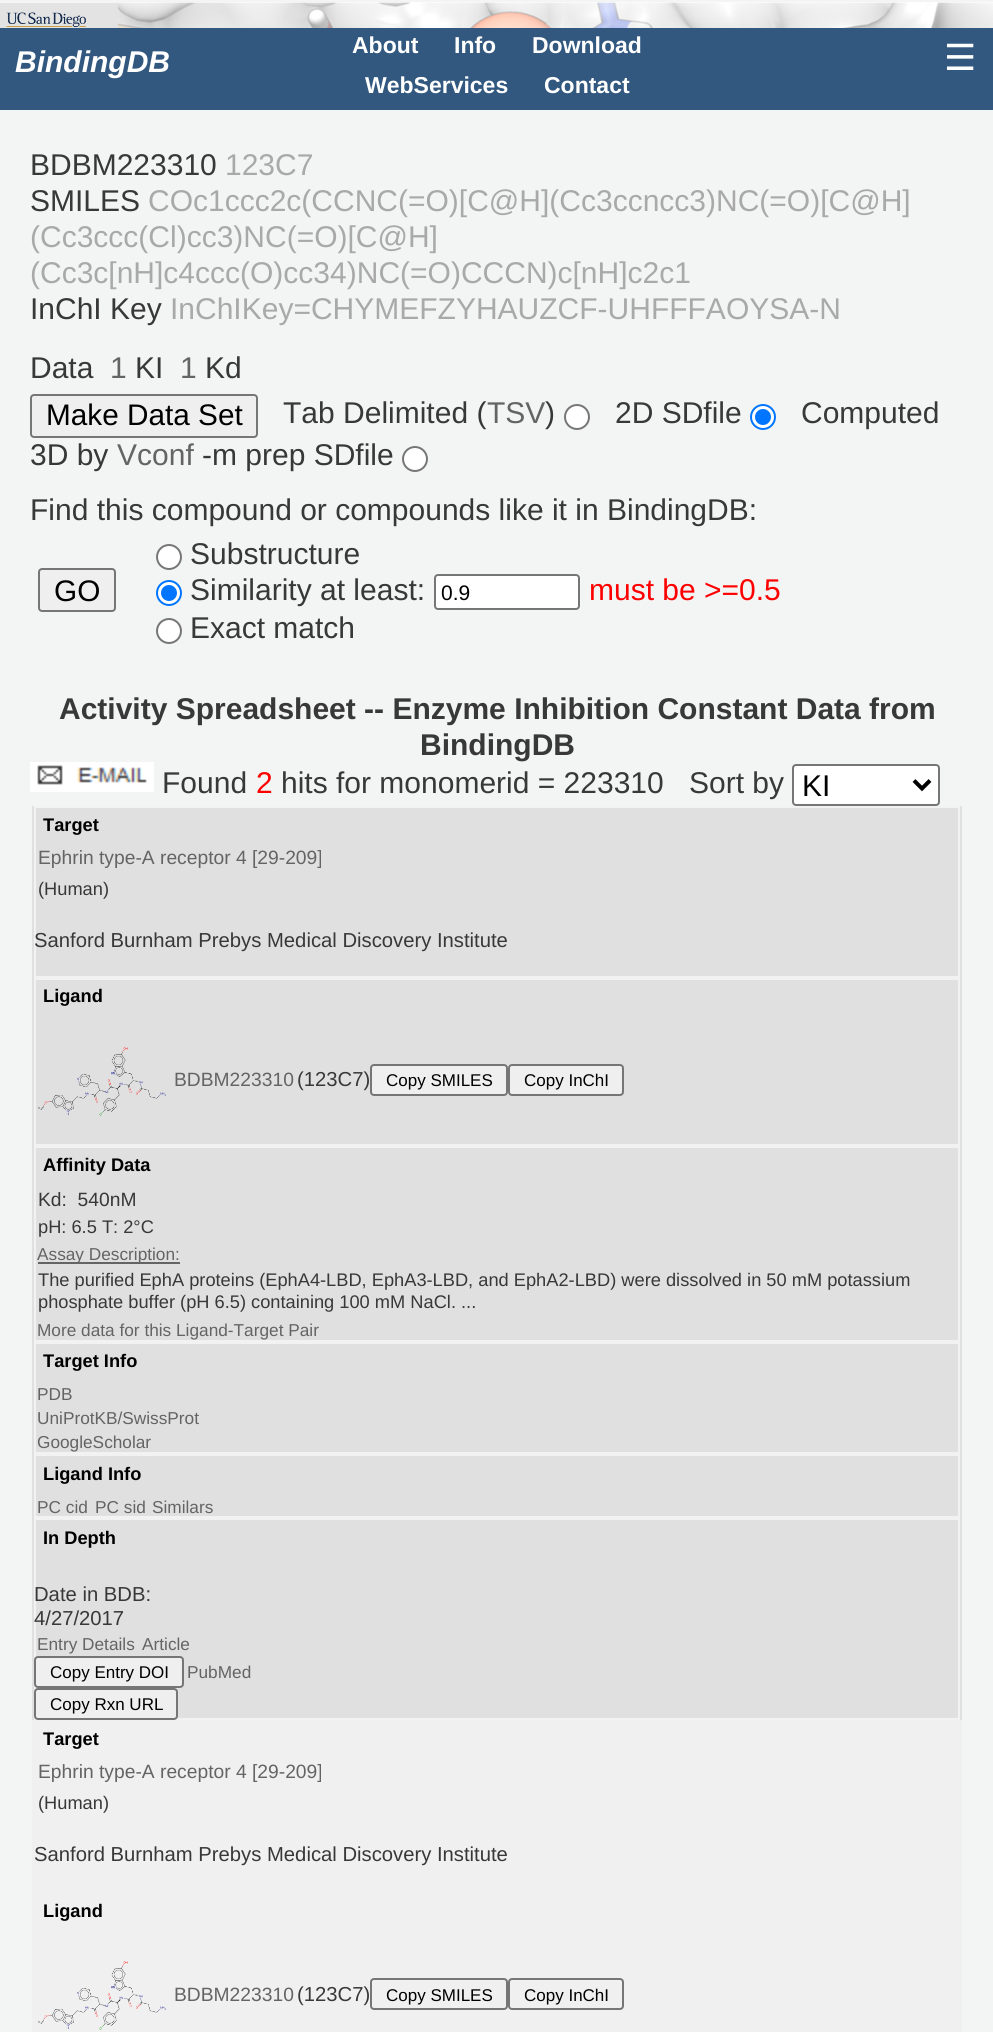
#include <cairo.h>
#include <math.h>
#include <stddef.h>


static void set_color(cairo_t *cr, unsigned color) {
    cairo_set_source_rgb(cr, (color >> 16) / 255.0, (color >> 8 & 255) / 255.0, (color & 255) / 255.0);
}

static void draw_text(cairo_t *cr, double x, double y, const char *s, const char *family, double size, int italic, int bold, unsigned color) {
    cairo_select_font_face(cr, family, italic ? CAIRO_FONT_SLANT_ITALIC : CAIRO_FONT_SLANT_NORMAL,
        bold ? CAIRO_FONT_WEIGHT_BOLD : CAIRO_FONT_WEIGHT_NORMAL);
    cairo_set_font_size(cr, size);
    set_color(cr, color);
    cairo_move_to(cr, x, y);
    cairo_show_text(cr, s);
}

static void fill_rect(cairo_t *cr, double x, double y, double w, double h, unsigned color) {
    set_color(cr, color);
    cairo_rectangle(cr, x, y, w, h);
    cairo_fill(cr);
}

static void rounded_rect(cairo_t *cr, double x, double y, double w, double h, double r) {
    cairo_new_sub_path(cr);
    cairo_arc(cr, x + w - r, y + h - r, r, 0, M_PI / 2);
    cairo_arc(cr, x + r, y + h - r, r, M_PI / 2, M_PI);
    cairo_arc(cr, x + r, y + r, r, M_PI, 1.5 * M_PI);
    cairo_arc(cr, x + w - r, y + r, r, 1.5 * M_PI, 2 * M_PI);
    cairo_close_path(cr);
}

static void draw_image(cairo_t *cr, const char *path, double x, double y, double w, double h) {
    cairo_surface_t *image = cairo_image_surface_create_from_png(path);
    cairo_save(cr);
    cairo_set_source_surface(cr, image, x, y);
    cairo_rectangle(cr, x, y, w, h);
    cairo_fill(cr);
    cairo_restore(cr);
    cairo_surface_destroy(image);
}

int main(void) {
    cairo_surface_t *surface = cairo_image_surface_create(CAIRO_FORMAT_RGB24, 993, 2032);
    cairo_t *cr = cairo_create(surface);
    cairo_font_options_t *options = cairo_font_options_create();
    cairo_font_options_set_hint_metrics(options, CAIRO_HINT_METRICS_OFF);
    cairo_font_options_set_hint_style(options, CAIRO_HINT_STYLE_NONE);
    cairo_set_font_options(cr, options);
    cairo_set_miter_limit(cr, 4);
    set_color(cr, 0xF3F5F4);
    cairo_paint(cr);
    draw_image(cr, "assets/img1.png", 0, 2, 993, 26);
    fill_rect(cr, 0, 28, 993, 82, 0x325880);
    draw_text(cr, 15, 72, "BindingDB", "Liberation Sans", 30, 1, 1, 0xFFFFFF);
    draw_text(cr, 352, 53, "About", "Liberation Sans", 23, 0, 1, 0xFFFFFF);
    draw_text(cr, 454, 53, "Info", "Liberation Sans", 23, 0, 1, 0xFFFFFF);
    draw_text(cr, 532, 53, "Download", "Liberation Sans", 23, 0, 1, 0xFFFFFF);
    draw_text(cr, 944, 70, "☰", "DejaVu Sans", 36, 0, 0, 0xFFFFFF);
    draw_text(cr, 365, 93, "WebServices", "Liberation Sans", 23, 0, 1, 0xFFFFFF);
    draw_text(cr, 544, 93, "Contact", "Liberation Sans", 23, 0, 1, 0xFFFFFF);
    draw_text(cr, 30, 175, "BDBM223310", "Liberation Sans", 30, 0, 0, 0x383838);
    draw_text(cr, 225, 175, "123C7", "Liberation Sans", 30, 0, 0, 0xA9A9A9);
    draw_text(cr, 30, 211, "SMILES", "Liberation Sans", 30, 0, 0, 0x383838);
    draw_text(cr, 148, 211, "COc1ccc2c(CCNC(=O)[C@H](Cc3ccncc3)NC(=O)[C@H]", "Liberation Sans", 30, 0, 0, 0xA9A9A9);
    draw_text(cr, 30, 247, "(Cc3ccc(Cl)cc3)NC(=O)[C@H]", "Liberation Sans", 30, 0, 0, 0xA9A9A9);
    draw_text(cr, 30, 283, "(Cc3c[nH]c4ccc(O)cc34)NC(=O)CCCN)c[nH]c2c1", "Liberation Sans", 30, 0, 0, 0xA9A9A9);
    draw_text(cr, 30, 319, "InChI Key", "Liberation Sans", 30, 0, 0, 0x383838);
    draw_text(cr, 170, 319, "InChIKey=CHYMEFZYHAUZCF-UHFFFAOYSA-N", "Liberation Sans", 30, 0, 0, 0xA9A9A9);
    draw_text(cr, 30, 378, "Data", "Liberation Sans", 30, 0, 0, 0x383838);
    draw_text(cr, 110, 378, "1", "Liberation Sans", 30, 0, 0, 0x646464);
    draw_text(cr, 135, 378, "KI", "Liberation Sans", 30, 0, 0, 0x383838);
    draw_text(cr, 180, 378, "1", "Liberation Sans", 30, 0, 0, 0x646464);
    draw_text(cr, 205, 378, "Kd", "Liberation Sans", 30, 0, 0, 0x383838);
    set_color(cr, 0xEFEFEF);
    rounded_rect(cr, 31, 395, 226, 42, 3);
    cairo_fill_preserve(cr);
    set_color(cr, 0x767676);
    cairo_stroke(cr);
    draw_text(cr, 46, 425, "Make Data Set", "Liberation Sans", 29.75, 0, 0, 0x000000);
    draw_text(cr, 283, 423, "Tab Delimited (", "Liberation Sans", 30, 0, 0, 0x383838);
    draw_text(cr, 487, 423, "TSV", "Liberation Sans", 30, 0, 0, 0x646464);
    draw_text(cr, 545, 423, ")", "Liberation Sans", 30, 0, 0, 0x383838);
    set_color(cr, 0xFFFFFF);
    cairo_new_path(cr);
    cairo_arc(cr, 577, 417, 12, 0, 2 * M_PI);
    cairo_fill_preserve(cr);
    set_color(cr, 0x767676);
    cairo_stroke(cr);
    draw_text(cr, 615, 423, "2D SDfile", "Liberation Sans", 30, 0, 0, 0x383838);
    set_color(cr, 0xFFFFFF);
    cairo_new_path(cr);
    cairo_arc(cr, 763, 417, 12, 0, 2 * M_PI);
    cairo_fill_preserve(cr);
    set_color(cr, 0x0075FF);
    cairo_stroke(cr);
    cairo_arc(cr, 763, 417, 8, 0, 2 * M_PI);
    cairo_fill(cr);
    draw_text(cr, 801, 423, "Computed", "Liberation Sans", 30, 0, 0, 0x383838);
    draw_text(cr, 30, 465, "3D by", "Liberation Sans", 30, 0, 0, 0x383838);
    draw_text(cr, 117, 465, "Vconf", "Liberation Sans", 30, 0, 0, 0x646464);
    draw_text(cr, 202, 465, "-m prep SDfile", "Liberation Sans", 30, 0, 0, 0x383838);
    set_color(cr, 0xFFFFFF);
    cairo_new_path(cr);
    cairo_arc(cr, 415, 459, 12, 0, 2 * M_PI);
    cairo_fill_preserve(cr);
    set_color(cr, 0x767676);
    cairo_stroke(cr);
    draw_text(cr, 30, 520, "Find this compound or compounds like it in BindingDB:", "Liberation Sans", 30, 0, 0, 0x383838);
    set_color(cr, 0xEFEFEF);
    rounded_rect(cr, 39, 569, 76, 42, 3);
    cairo_fill_preserve(cr);
    set_color(cr, 0x767676);
    cairo_stroke(cr);
    draw_text(cr, 54, 601, "GO", "Liberation Sans", 29.75, 0, 0, 0x000000);
    set_color(cr, 0xFFFFFF);
    cairo_new_path(cr);
    cairo_arc(cr, 169, 557, 12, 0, 2 * M_PI);
    cairo_fill_preserve(cr);
    set_color(cr, 0x767676);
    cairo_stroke(cr);
    draw_text(cr, 190, 564, "Substructure", "Liberation Sans", 30, 0, 0, 0x383838);
    set_color(cr, 0xFFFFFF);
    cairo_new_path(cr);
    cairo_arc(cr, 169, 593, 12, 0, 2 * M_PI);
    cairo_fill_preserve(cr);
    set_color(cr, 0x0075FF);
    cairo_stroke(cr);
    cairo_arc(cr, 169, 593, 8, 0, 2 * M_PI);
    cairo_fill(cr);
    draw_text(cr, 190, 600, "Similarity at least:", "Liberation Sans", 30, 0, 0, 0x383838);
    set_color(cr, 0xFFFFFF);
    rounded_rect(cr, 435, 575, 144, 34, 3);
    cairo_fill_preserve(cr);
    set_color(cr, 0x767676);
    cairo_stroke(cr);
    draw_text(cr, 441, 600, "0.9", "Liberation Sans", 21, 0, 0, 0x000000);
    draw_text(cr, 589, 600, "must be >=0.5", "Liberation Sans", 30, 0, 0, 0xFF0000);
    set_color(cr, 0xFFFFFF);
    cairo_new_path(cr);
    cairo_arc(cr, 169, 631, 12, 0, 2 * M_PI);
    cairo_fill_preserve(cr);
    set_color(cr, 0x767676);
    cairo_stroke(cr);
    draw_text(cr, 190, 638, "Exact match", "Liberation Sans", 30, 0, 0, 0x383838);
    draw_text(cr, 59, 719, "Activity Spreadsheet -- Enzyme Inhibition Constant Data from", "Liberation Sans", 30, 0, 1, 0x383838);
    draw_text(cr, 420, 755, "BindingDB", "Liberation Sans", 30, 0, 1, 0x383838);
    draw_image(cr, "assets/img2.png", 30, 762, 124, 30);
    draw_text(cr, 162, 793, "Found", "Liberation Sans", 30, 0, 0, 0x383838);
    draw_text(cr, 256, 793, "2", "Liberation Sans", 30, 0, 0, 0xFF0000);
    draw_text(cr, 281, 793, "hits for monomerid = 223310", "Liberation Sans", 30, 0, 0, 0x383838);
    draw_text(cr, 689, 793, "Sort by", "Liberation Sans", 30, 0, 0, 0x383838);
    set_color(cr, 0xFFFFFF);
    rounded_rect(cr, 793, 765, 146, 40, 3);
    cairo_fill_preserve(cr);
    set_color(cr, 0x767676);
    cairo_stroke(cr);
    cairo_new_path(cr);
    cairo_move_to(cr, 914, 780.5);
    cairo_line_to(cr, 922, 788.5);
    cairo_line_to(cr, 930, 780.5);
    set_color(cr, 0x000000);
    cairo_set_line_width(cr, 4);
    cairo_stroke(cr);
    draw_text(cr, 802, 796, "KI", "Liberation Sans", 30, 0, 0, 0x000000);
    fill_rect(cr, 32, 806, 930, 914, 0xE0E0E0);
    cairo_rectangle(cr, 35, 807, 924, 170);
    set_color(cr, 0xF2F2F2);
    cairo_set_line_width(cr, 2);
    cairo_stroke(cr);
    draw_text(cr, 43, 831, "Target", "Liberation Sans", 18.25, 0, 1, 0x000000);
    draw_text(cr, 38, 864, "Ephrin type-A receptor 4 [29-209]", "Liberation Sans", 19.25, 0, 0, 0x646464);
    draw_text(cr, 38, 895, "(Human)", "Liberation Sans", 18.25, 0, 0, 0x383838);
    draw_text(cr, 34, 947, "Sanford Burnham Prebys Medical Discovery Institute", "Liberation Sans", 20.25, 0, 0, 0x383838);
    cairo_rectangle(cr, 35, 979, 924, 166);
    set_color(cr, 0xF2F2F2);
    cairo_stroke(cr);
    draw_text(cr, 43, 1002, "Ligand", "Liberation Sans", 18.25, 0, 1, 0x000000);
    draw_image(cr, "assets/img3.png", 38, 1047, 128, 69);
    draw_text(cr, 174, 1086, "BDBM223310", "Liberation Sans", 19.25, 0, 0, 0x646464);
    draw_text(cr, 297, 1086, "(123C7)", "Liberation Sans", 20.25, 0, 0, 0x383838);
    set_color(cr, 0xEFEFEF);
    rounded_rect(cr, 371, 1065, 136, 30, 3);
    cairo_fill_preserve(cr);
    set_color(cr, 0x767676);
    cairo_stroke(cr);
    draw_text(cr, 386, 1086, "Copy SMILES", "Liberation Sans", 17, 0, 0, 0x000000);
    set_color(cr, 0xEFEFEF);
    rounded_rect(cr, 509, 1065, 114, 30, 3);
    cairo_fill_preserve(cr);
    set_color(cr, 0x767676);
    cairo_stroke(cr);
    draw_text(cr, 524, 1086, "Copy InChI", "Liberation Sans", 17, 0, 0, 0x000000);
    cairo_rectangle(cr, 35, 1147, 924, 194);
    set_color(cr, 0xF2F2F2);
    cairo_stroke(cr);
    draw_text(cr, 43, 1171, "Affinity Data", "Liberation Sans", 18.25, 0, 1, 0x000000);
    draw_text(cr, 38, 1206, "Kd:  540nM", "Liberation Sans", 19.25, 0, 0, 0x383838);
    draw_text(cr, 38, 1233, "pH: 6.5 T: 2°C", "Liberation Sans", 18.25, 0, 0, 0x383838);
    fill_rect(cr, 38, 1262, 142, 2, 0x646464);
    draw_text(cr, 37, 1260, "Assay Description:", "Liberation Sans", 17.25, 0, 0, 0x646464);
    draw_text(cr, 38, 1286, "The purified EphA proteins (EphA4-LBD, EphA3-LBD, and EphA2-LBD) were dissolved in 50 mM potassium", "Liberation Sans", 18.25, 0, 0, 0x383838);
    draw_text(cr, 38, 1308, "phosphate buffer (pH 6.5) containing 100 mM NaCl. ...", "Liberation Sans", 18.25, 0, 0, 0x383838);
    draw_text(cr, 37, 1336, "More data for this Ligand-Target Pair", "Liberation Sans", 17.25, 0, 0, 0x646464);
    cairo_rectangle(cr, 35, 1343, 924, 110);
    set_color(cr, 0xF2F2F2);
    cairo_stroke(cr);
    draw_text(cr, 43, 1367, "Target Info", "Liberation Sans", 18.25, 0, 1, 0x000000);
    draw_text(cr, 37, 1400, "PDB", "Liberation Sans", 17.25, 0, 0, 0x646464);
    draw_text(cr, 37, 1424, "UniProtKB/SwissProt", "Liberation Sans", 17.25, 0, 0, 0x646464);
    draw_text(cr, 37, 1448, "GoogleScholar", "Liberation Sans", 17.25, 0, 0, 0x646464);
    cairo_rectangle(cr, 35, 1455, 924, 62);
    set_color(cr, 0xF2F2F2);
    cairo_stroke(cr);
    draw_text(cr, 43, 1480, "Ligand Info", "Liberation Sans", 18.25, 0, 1, 0x000000);
    draw_text(cr, 37, 1513, "PC cid", "Liberation Sans", 17.25, 0, 0, 0x646464);
    draw_text(cr, 95, 1513, "PC sid", "Liberation Sans", 17.25, 0, 0, 0x646464);
    draw_text(cr, 152, 1513, "Similars", "Liberation Sans", 17.25, 0, 0, 0x646464);
    cairo_rectangle(cr, 35, 1519, 924, 200);
    set_color(cr, 0xF2F2F2);
    cairo_stroke(cr);
    draw_text(cr, 43, 1544, "In Depth", "Liberation Sans", 18.25, 0, 1, 0x000000);
    draw_text(cr, 34, 1601, "Date in BDB:", "Liberation Sans", 20.25, 0, 0, 0x383838);
    draw_text(cr, 34, 1625, "4/27/2017", "Liberation Sans", 20.25, 0, 0, 0x383838);
    draw_text(cr, 37, 1650, "Entry Details", "Liberation Sans", 17.25, 0, 0, 0x646464);
    draw_text(cr, 142, 1650, "Article", "Liberation Sans", 17.25, 0, 0, 0x646464);
    set_color(cr, 0xEFEFEF);
    rounded_rect(cr, 35, 1657, 148, 30, 3);
    cairo_fill_preserve(cr);
    set_color(cr, 0x767676);
    cairo_stroke(cr);
    draw_text(cr, 50, 1678, "Copy Entry DOI", "Liberation Sans", 17, 0, 0, 0x000000);
    draw_text(cr, 187, 1678, "PubMed", "Liberation Sans", 17.25, 0, 0, 0x646464);
    set_color(cr, 0xEFEFEF);
    rounded_rect(cr, 35, 1689, 142, 30, 3);
    cairo_fill_preserve(cr);
    set_color(cr, 0x767676);
    cairo_stroke(cr);
    draw_text(cr, 50, 1710, "Copy Rxn URL", "Liberation Sans", 17, 0, 0, 0x000000);
    fill_rect(cr, 32, 1720, 930, 312, 0xF0F0F0);
    draw_text(cr, 43, 1745, "Target", "Liberation Sans", 18.25, 0, 1, 0x000000);
    draw_text(cr, 38, 1778, "Ephrin type-A receptor 4 [29-209]", "Liberation Sans", 19.25, 0, 0, 0x646464);
    draw_text(cr, 38, 1809, "(Human)", "Liberation Sans", 18.25, 0, 0, 0x383838);
    draw_text(cr, 34, 1861, "Sanford Burnham Prebys Medical Discovery Institute", "Liberation Sans", 20.25, 0, 0, 0x383838);
    draw_text(cr, 43, 1917, "Ligand", "Liberation Sans", 18.25, 0, 1, 0x000000);
    draw_image(cr, "assets/img4.png", 38, 1961, 128, 69);
    draw_text(cr, 174, 2001, "BDBM223310", "Liberation Sans", 19.25, 0, 0, 0x646464);
    draw_text(cr, 297, 2001, "(123C7)", "Liberation Sans", 20.25, 0, 0, 0x383838);
    rounded_rect(cr, 371, 1979, 136, 30, 3);
    set_color(cr, 0x767676);
    cairo_stroke(cr);
    draw_text(cr, 386, 2001, "Copy SMILES", "Liberation Sans", 17, 0, 0, 0x000000);
    rounded_rect(cr, 509, 1979, 114, 30, 3);
    set_color(cr, 0x767676);
    cairo_stroke(cr);
    draw_text(cr, 524, 2001, "Copy InChI", "Liberation Sans", 17, 0, 0, 0x000000);
    cairo_surface_write_to_png(surface, "output.png");
    cairo_font_options_destroy(options);
    cairo_destroy(cr);
    cairo_surface_destroy(surface);
    return 0;
}
